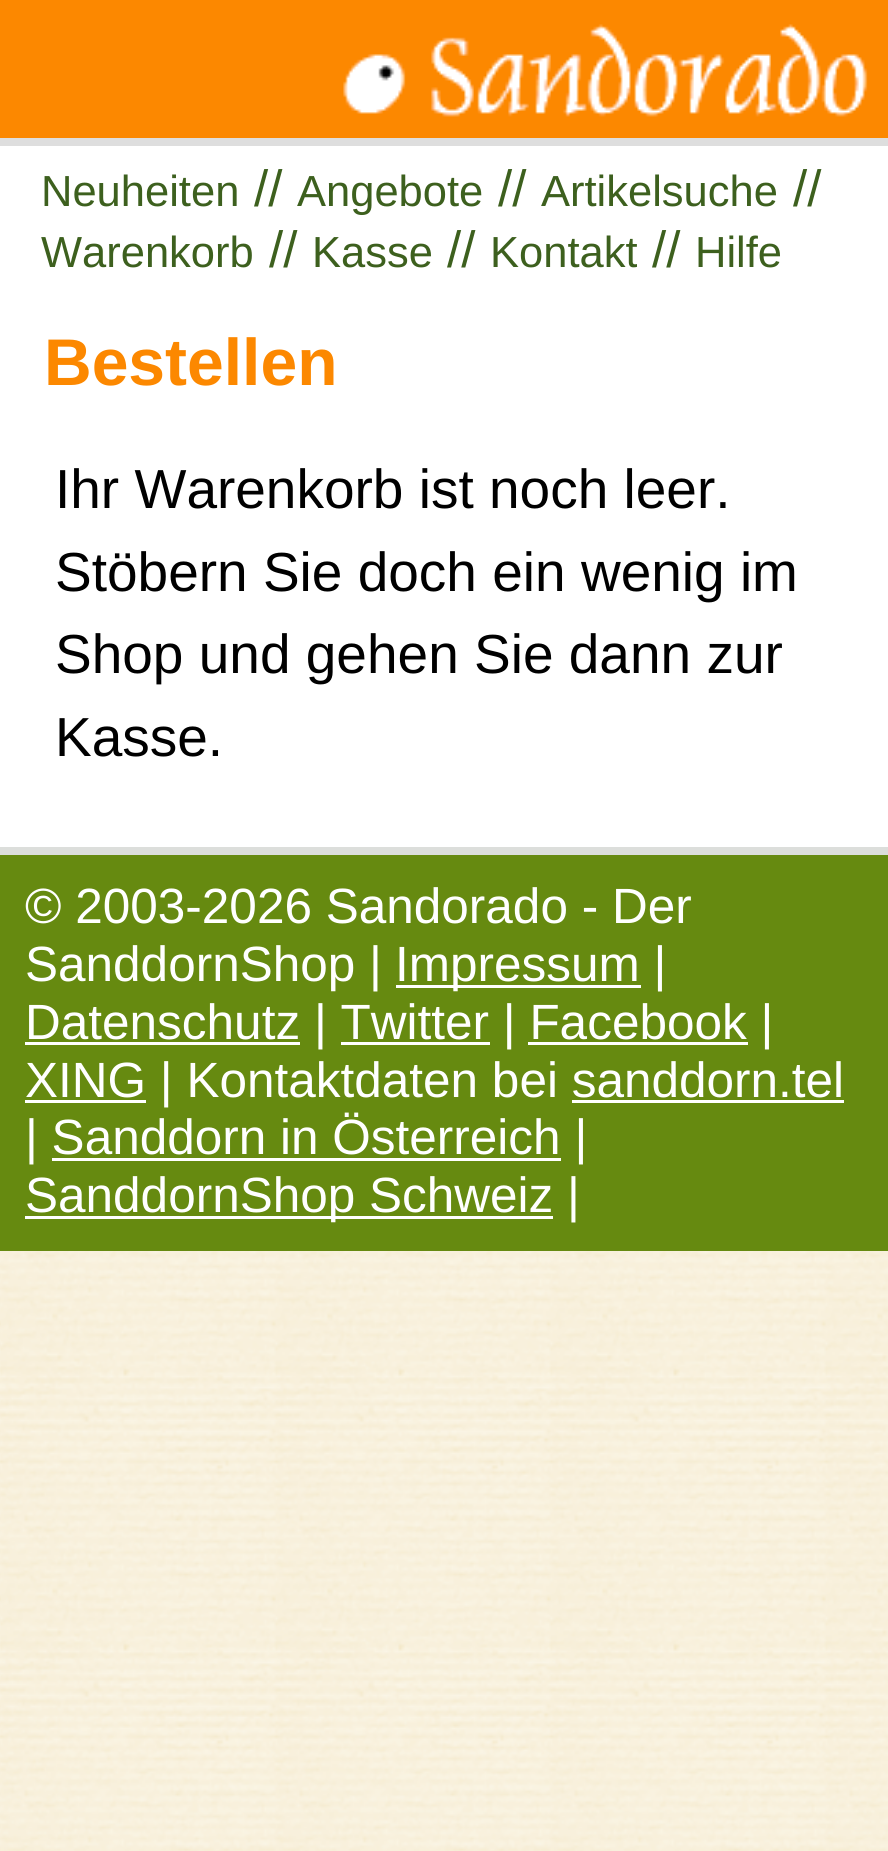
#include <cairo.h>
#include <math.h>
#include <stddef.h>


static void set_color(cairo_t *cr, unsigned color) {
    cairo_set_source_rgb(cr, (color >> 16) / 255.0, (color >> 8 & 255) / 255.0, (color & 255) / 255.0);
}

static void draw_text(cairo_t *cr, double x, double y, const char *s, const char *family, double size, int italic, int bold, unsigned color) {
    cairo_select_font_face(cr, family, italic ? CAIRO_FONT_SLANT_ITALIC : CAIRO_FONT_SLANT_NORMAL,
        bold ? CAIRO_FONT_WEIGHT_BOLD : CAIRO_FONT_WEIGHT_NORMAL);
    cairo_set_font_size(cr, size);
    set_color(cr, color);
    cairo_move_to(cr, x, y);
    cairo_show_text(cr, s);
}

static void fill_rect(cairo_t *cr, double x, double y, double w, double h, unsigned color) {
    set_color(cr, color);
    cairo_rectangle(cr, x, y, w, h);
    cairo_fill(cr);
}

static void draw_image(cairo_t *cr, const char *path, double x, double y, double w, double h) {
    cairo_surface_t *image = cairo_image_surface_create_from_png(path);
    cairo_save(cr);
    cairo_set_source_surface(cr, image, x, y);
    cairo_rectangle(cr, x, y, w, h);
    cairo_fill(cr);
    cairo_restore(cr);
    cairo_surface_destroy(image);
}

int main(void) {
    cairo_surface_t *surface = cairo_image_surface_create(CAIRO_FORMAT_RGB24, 888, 1851);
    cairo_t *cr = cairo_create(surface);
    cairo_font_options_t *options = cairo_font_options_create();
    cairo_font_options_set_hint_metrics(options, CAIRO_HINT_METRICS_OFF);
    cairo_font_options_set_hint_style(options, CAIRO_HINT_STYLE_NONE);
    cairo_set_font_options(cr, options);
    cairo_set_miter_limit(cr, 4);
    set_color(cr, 0xFFFFFF);
    cairo_paint(cr);
    draw_image(cr, "assets/img1.png", 0, 1251, 888, 600);
    fill_rect(cr, 0, 0, 888, 138, 0xFC8800);
    draw_image(cr, "assets/img2.png", 343, 24, 525, 93);
    fill_rect(cr, 0, 138, 888, 8, 0xDEDEDE);
    draw_text(cr, 41, 206, "Neuheiten", "Liberation Sans", 43.5, 0, 0, 0x3D601E);
    draw_text(cr, 254, 206, "//", "Liberation Sans", 51, 0, 0, 0x3D601E);
    draw_text(cr, 297, 206, "Angebote", "Liberation Sans", 43.5, 0, 0, 0x3D601E);
    draw_text(cr, 498, 206, "//", "Liberation Sans", 51, 0, 0, 0x3D601E);
    draw_text(cr, 541, 206, "Artikelsuche", "Liberation Sans", 43.5, 0, 0, 0x3D601E);
    draw_text(cr, 793, 206, "//", "Liberation Sans", 51, 0, 0, 0x3D601E);
    draw_text(cr, 41, 267, "Warenkorb", "Liberation Sans", 43.5, 0, 0, 0x3D601E);
    draw_text(cr, 269, 267, "//", "Liberation Sans", 51, 0, 0, 0x3D601E);
    draw_text(cr, 312, 267, "Kasse", "Liberation Sans", 43.5, 0, 0, 0x3D601E);
    draw_text(cr, 447, 267, "//", "Liberation Sans", 51, 0, 0, 0x3D601E);
    draw_text(cr, 490, 267, "Kontakt", "Liberation Sans", 43.5, 0, 0, 0x3D601E);
    draw_text(cr, 652, 267, "//", "Liberation Sans", 51, 0, 0, 0x3D601E);
    draw_text(cr, 695, 267, "Hilfe", "Liberation Sans", 43.5, 0, 0, 0x3D601E);
    draw_text(cr, 44, 385, "Bestellen", "Liberation Sans", 66, 0, 1, 0xFC8800);
    draw_text(cr, 55, 508, "Ihr Warenkorb ist noch leer.", "Liberation Sans", 55, 0, 0, 0x000000);
    draw_text(cr, 55, 591, "Stöbern Sie doch ein wenig im", "Liberation Sans", 55, 0, 0, 0x000000);
    draw_text(cr, 55, 673, "Shop und gehen Sie dann zur", "Liberation Sans", 55, 0, 0, 0x000000);
    draw_text(cr, 55, 756, "Kasse.", "Liberation Sans", 55, 0, 0, 0x000000);
    fill_rect(cr, 0, 847, 888, 8, 0xDCDEDB);
    fill_rect(cr, 0, 855, 888, 396, 0x668A10);
    draw_text(cr, 25, 923, "© 2003-2026 Sandorado - Der", "Liberation Sans", 49.5, 0, 0, 0xFFFFFF);
    draw_text(cr, 25, 981, "SanddornShop |", "Liberation Sans", 49.5, 0, 0, 0xFFFFFF);
    fill_rect(cr, 396, 985, 245, 3, 0xFFFFFF);
    draw_text(cr, 395, 981, "Impressum |", "Liberation Sans", 49.5, 0, 0, 0xFFFFFF);
    fill_rect(cr, 25, 1042, 275, 3, 0xFFFFFF);
    draw_text(cr, 25, 1039, "Datenschutz | Twitter | Facebook |", "Liberation Sans", 49.5, 0, 0, 0xFFFFFF);
    fill_rect(cr, 341, 1042, 149, 3, 0xFFFFFF);
    fill_rect(cr, 528, 1042, 220, 3, 0xFFFFFF);
    fill_rect(cr, 25, 1100, 121, 3, 0xFFFFFF);
    draw_text(cr, 25, 1097, "XING | Kontaktdaten bei sanddorn.tel", "Liberation Sans", 49.5, 0, 0, 0xFFFFFF);
    fill_rect(cr, 572, 1100, 272, 3, 0xFFFFFF);
    draw_text(cr, 25, 1154, "| Sanddorn in Österreich |", "Liberation Sans", 49.5, 0, 0, 0xFFFFFF);
    fill_rect(cr, 52, 1158, 509, 3, 0xFFFFFF);
    fill_rect(cr, 25, 1216, 528, 3, 0xFFFFFF);
    draw_text(cr, 25, 1212, "SanddornShop Schweiz |", "Liberation Sans", 49.5, 0, 0, 0xFFFFFF);
    cairo_surface_write_to_png(surface, "output.png");
    cairo_font_options_destroy(options);
    cairo_destroy(cr);
    cairo_surface_destroy(surface);
    return 0;
}
